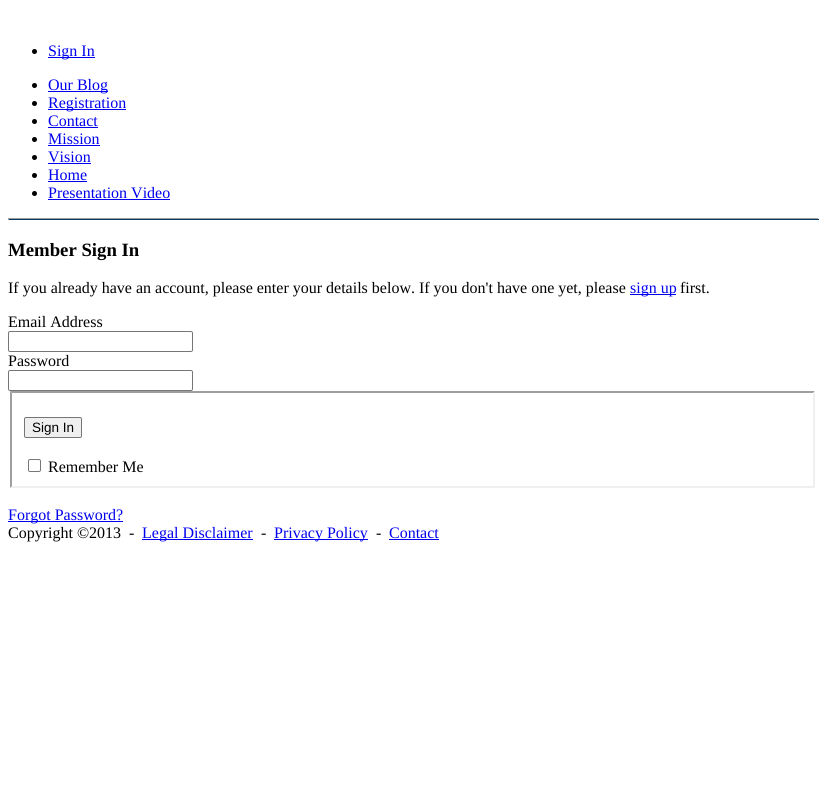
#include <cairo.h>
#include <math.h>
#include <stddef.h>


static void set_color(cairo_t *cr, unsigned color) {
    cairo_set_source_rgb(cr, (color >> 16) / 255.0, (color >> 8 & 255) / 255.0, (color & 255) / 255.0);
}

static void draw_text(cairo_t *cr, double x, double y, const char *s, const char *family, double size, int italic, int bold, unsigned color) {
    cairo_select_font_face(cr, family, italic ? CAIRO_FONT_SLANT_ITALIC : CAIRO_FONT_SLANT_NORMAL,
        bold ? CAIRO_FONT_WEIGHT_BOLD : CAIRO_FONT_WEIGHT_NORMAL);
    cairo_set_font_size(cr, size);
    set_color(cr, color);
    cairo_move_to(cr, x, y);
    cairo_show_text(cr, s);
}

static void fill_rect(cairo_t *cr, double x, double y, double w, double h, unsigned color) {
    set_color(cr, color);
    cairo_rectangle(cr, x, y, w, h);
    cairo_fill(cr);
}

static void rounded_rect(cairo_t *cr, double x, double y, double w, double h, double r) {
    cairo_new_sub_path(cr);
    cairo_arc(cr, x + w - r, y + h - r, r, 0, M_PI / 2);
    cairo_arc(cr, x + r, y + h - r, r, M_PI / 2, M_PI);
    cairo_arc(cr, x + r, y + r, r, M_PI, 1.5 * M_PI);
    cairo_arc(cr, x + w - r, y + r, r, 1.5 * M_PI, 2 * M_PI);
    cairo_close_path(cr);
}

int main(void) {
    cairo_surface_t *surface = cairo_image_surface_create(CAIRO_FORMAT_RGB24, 825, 802);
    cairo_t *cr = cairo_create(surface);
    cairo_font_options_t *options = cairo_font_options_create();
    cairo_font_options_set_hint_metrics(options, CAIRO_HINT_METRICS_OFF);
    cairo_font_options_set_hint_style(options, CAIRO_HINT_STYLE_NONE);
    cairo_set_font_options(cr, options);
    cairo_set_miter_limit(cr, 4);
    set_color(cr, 0xFFFFFF);
    cairo_paint(cr);
    set_color(cr, 0x000000);
    cairo_arc(cr, 34.5, 51.5, 2.5, 0, 2 * M_PI);
    cairo_fill(cr);
    fill_rect(cr, 48, 57, 47, 1, 0x0000EE);
    draw_text(cr, 48, 56, "Sign In", "Liberation Serif", 16, 0, 0, 0x0000EE);
    set_color(cr, 0x000000);
    cairo_new_path(cr);
    cairo_arc(cr, 34.5, 85.5, 2.5, 0, 2 * M_PI);
    cairo_fill(cr);
    fill_rect(cr, 48, 91, 60, 1, 0x0000EE);
    draw_text(cr, 48, 90, "Our Blog", "Liberation Serif", 16, 0, 0, 0x0000EE);
    set_color(cr, 0x000000);
    cairo_new_path(cr);
    cairo_arc(cr, 34.5, 103.5, 2.5, 0, 2 * M_PI);
    cairo_fill(cr);
    fill_rect(cr, 48, 109, 78, 1, 0x0000EE);
    draw_text(cr, 48, 108, "Registration", "Liberation Serif", 16, 0, 0, 0x0000EE);
    set_color(cr, 0x000000);
    cairo_new_path(cr);
    cairo_arc(cr, 34.5, 121.5, 2.5, 0, 2 * M_PI);
    cairo_fill(cr);
    draw_text(cr, 48, 126, "Contact", "Liberation Serif", 16, 0, 0, 0x0000EE);
    fill_rect(cr, 48, 127, 50, 1, 0x0000EE);
    set_color(cr, 0x000000);
    cairo_new_path(cr);
    cairo_arc(cr, 34.5, 139.5, 2.5, 0, 2 * M_PI);
    cairo_fill(cr);
    draw_text(cr, 48, 144, "Mission", "Liberation Serif", 16, 0, 0, 0x0000EE);
    fill_rect(cr, 48, 145, 52, 1, 0x0000EE);
    set_color(cr, 0x000000);
    cairo_new_path(cr);
    cairo_arc(cr, 34.5, 157.5, 2.5, 0, 2 * M_PI);
    cairo_fill(cr);
    draw_text(cr, 48, 162, "Vision", "Liberation Serif", 16, 0, 0, 0x0000EE);
    fill_rect(cr, 48, 163, 43, 1, 0x0000EE);
    set_color(cr, 0x000000);
    cairo_new_path(cr);
    cairo_arc(cr, 34.5, 175.5, 2.5, 0, 2 * M_PI);
    cairo_fill(cr);
    draw_text(cr, 48, 180, "Home", "Liberation Serif", 16, 0, 0, 0x0000EE);
    fill_rect(cr, 48, 181, 39, 1, 0x0000EE);
    set_color(cr, 0x000000);
    cairo_new_path(cr);
    cairo_arc(cr, 34.5, 193.5, 2.5, 0, 2 * M_PI);
    cairo_fill(cr);
    draw_text(cr, 48, 198, "Presentation Video", "Liberation Serif", 16, 0, 0, 0x0000EE);
    fill_rect(cr, 48, 199, 122, 1, 0x0000EE);
    fill_rect(cr, 8, 218, 811, 1, 0x9F9F9F);
    fill_rect(cr, 818, 218, 1, 2, 0xEEEEEE);
    fill_rect(cr, 8, 219, 811, 1, 0x06375F);
    fill_rect(cr, 8, 218, 1, 2, 0x9F9F9F);
    draw_text(cr, 8, 256, "Member Sign In", "Liberation Serif", 18.75, 0, 1, 0x000000);
    draw_text(cr, 8, 293, "If you already have an account, please enter your details below. If you don't have one yet, please", "Liberation Serif", 16, 0, 0, 0x000000);
    fill_rect(cr, 630, 294, 46, 1, 0x0000EE);
    draw_text(cr, 630, 293, "sign up", "Liberation Serif", 16, 0, 0, 0x0000EE);
    draw_text(cr, 680, 293, "first.", "Liberation Serif", 16, 0, 0, 0x000000);
    draw_text(cr, 8, 327, "Email Address", "Liberation Serif", 16, 0, 0, 0x000000);
    rounded_rect(cr, 8.5, 331.5, 184, 20, 1.5);
    set_color(cr, 0x767676);
    cairo_set_line_width(cr, 1);
    cairo_stroke(cr);
    draw_text(cr, 8, 366, "Password", "Liberation Serif", 16, 0, 0, 0x000000);
    rounded_rect(cr, 8.5, 370.5, 184, 20, 1.5);
    set_color(cr, 0x767676);
    cairo_stroke(cr);
    set_color(cr, 0x9F9F9F);
    cairo_new_path(cr);
    cairo_move_to(cr, 10, 391);
    cairo_line_to(cr, 815, 391);
    cairo_line_to(cr, 813, 393);
    cairo_line_to(cr, 12, 393);
    cairo_close_path(cr);
    cairo_fill(cr);
    set_color(cr, 0xEFEFEF);
    cairo_new_path(cr);
    cairo_move_to(cr, 815, 391);
    cairo_line_to(cr, 815, 488);
    cairo_line_to(cr, 813, 486);
    cairo_line_to(cr, 813, 393);
    cairo_close_path(cr);
    cairo_fill(cr);
    cairo_new_path(cr);
    cairo_move_to(cr, 815, 488);
    cairo_line_to(cr, 10, 488);
    cairo_line_to(cr, 12, 486);
    cairo_line_to(cr, 813, 486);
    cairo_close_path(cr);
    cairo_fill(cr);
    set_color(cr, 0x9F9F9F);
    cairo_new_path(cr);
    cairo_move_to(cr, 10, 488);
    cairo_line_to(cr, 10, 391);
    cairo_line_to(cr, 12, 393);
    cairo_line_to(cr, 12, 486);
    cairo_close_path(cr);
    cairo_fill(cr);
    set_color(cr, 0xEFEFEF);
    rounded_rect(cr, 24.5, 417.5, 57, 20, 1.5);
    cairo_fill_preserve(cr);
    set_color(cr, 0x767676);
    cairo_stroke(cr);
    draw_text(cr, 32, 432, "Sign In", "Liberation Sans", 13.5, 0, 0, 0x000000);
    rounded_rect(cr, 28.5, 459.5, 12, 12, 1.5);
    set_color(cr, 0x767676);
    cairo_stroke(cr);
    draw_text(cr, 48, 472, "Remember Me", "Liberation Serif", 16, 0, 0, 0x000000);
    fill_rect(cr, 8, 521, 115, 1, 0x0000EE);
    draw_text(cr, 8, 520, "Forgot Password?", "Liberation Serif", 16, 0, 0, 0x0000EE);
    draw_text(cr, 8, 538, "Copyright ©2013  -", "Liberation Serif", 16, 0, 0, 0x000000);
    fill_rect(cr, 142, 539, 111, 1, 0x0000EE);
    draw_text(cr, 142, 538, "Legal Disclaimer", "Liberation Serif", 16, 0, 0, 0x0000EE);
    draw_text(cr, 261, 538, "-", "Liberation Serif", 16, 0, 0, 0x000000);
    fill_rect(cr, 274, 539, 94, 1, 0x0000EE);
    draw_text(cr, 274, 538, "Privacy Policy", "Liberation Serif", 16, 0, 0, 0x0000EE);
    draw_text(cr, 376, 538, "-", "Liberation Serif", 16, 0, 0, 0x000000);
    draw_text(cr, 389, 538, "Contact", "Liberation Serif", 16, 0, 0, 0x0000EE);
    fill_rect(cr, 389, 539, 50, 1, 0x0000EE);
    cairo_surface_write_to_png(surface, "output.png");
    cairo_font_options_destroy(options);
    cairo_destroy(cr);
    cairo_surface_destroy(surface);
    return 0;
}
